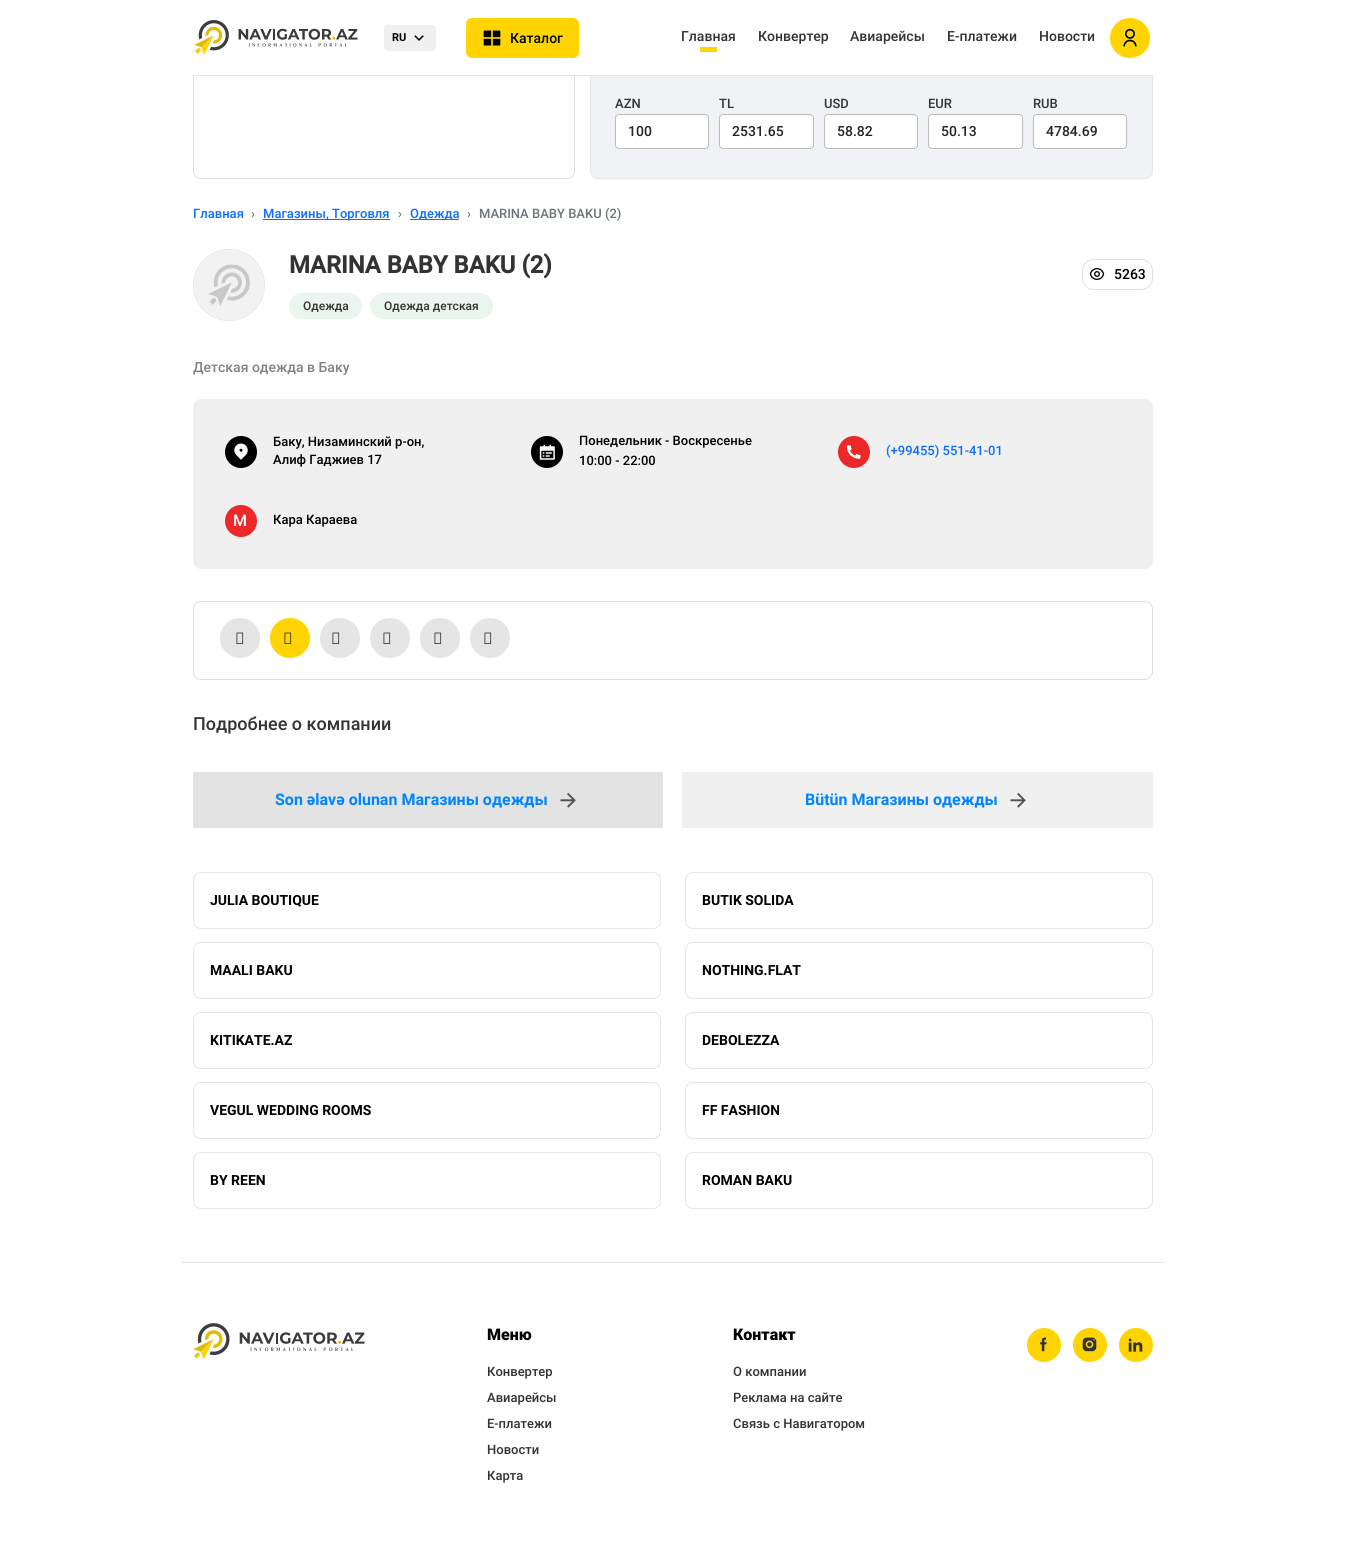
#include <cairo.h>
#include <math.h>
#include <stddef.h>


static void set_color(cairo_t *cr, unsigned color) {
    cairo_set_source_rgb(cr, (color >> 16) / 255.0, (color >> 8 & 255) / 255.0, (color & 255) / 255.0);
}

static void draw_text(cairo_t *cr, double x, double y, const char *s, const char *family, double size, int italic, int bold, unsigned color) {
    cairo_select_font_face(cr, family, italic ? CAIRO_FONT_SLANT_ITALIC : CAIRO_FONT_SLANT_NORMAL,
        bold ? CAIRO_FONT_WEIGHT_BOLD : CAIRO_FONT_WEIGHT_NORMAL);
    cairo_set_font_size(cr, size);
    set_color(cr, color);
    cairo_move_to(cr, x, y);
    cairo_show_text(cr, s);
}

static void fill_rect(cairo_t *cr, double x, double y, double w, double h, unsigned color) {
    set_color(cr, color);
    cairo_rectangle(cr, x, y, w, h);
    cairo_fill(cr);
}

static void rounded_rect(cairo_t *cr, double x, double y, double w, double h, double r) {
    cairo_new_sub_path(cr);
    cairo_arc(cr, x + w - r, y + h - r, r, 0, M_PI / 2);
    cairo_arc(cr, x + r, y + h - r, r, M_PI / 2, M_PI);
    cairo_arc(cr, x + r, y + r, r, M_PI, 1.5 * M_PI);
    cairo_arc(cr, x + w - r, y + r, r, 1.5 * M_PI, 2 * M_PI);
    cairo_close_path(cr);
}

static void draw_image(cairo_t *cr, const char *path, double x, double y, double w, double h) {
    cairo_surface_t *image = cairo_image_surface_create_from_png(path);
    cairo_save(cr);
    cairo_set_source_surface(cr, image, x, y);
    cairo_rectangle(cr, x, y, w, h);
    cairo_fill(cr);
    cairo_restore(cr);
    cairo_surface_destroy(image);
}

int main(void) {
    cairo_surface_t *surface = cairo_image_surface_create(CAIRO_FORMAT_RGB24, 1345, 1545);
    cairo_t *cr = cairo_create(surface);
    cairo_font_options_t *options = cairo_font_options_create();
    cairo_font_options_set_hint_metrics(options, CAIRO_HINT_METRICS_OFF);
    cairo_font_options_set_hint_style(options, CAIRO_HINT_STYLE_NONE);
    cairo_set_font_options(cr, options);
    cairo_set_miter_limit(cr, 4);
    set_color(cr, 0xFFFFFF);
    cairo_paint(cr);
    rounded_rect(cr, 193.5, 13.5, 381, 165, 7.5);
    set_color(cr, 0xDFDFDF);
    cairo_set_line_width(cr, 1);
    cairo_stroke(cr);
    set_color(cr, 0xF0F2F5);
    rounded_rect(cr, 590.5, 13.5, 562, 165, 7.5);
    cairo_fill_preserve(cr);
    set_color(cr, 0xE6E6E6);
    cairo_stroke(cr);
    fill_rect(cr, 193, 13, 960, 62, 0xFFFFFF);
    fill_rect(cr, 193, 75, 960, 1, 0xE5E5E5);
    draw_image(cr, "assets/img1.png", 194, 20, 164, 35);
    set_color(cr, 0xF0F0F0);
    rounded_rect(cr, 384, 25, 52, 26, 4);
    cairo_fill(cr);
    draw_text(cr, 392, 41, "RU", "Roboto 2", 11, 0, 1, 0x000000);
    draw_image(cr, "assets/img2.png", 414, 35, 10, 6);
    set_color(cr, 0xFFD400);
    rounded_rect(cr, 466, 18, 113, 40, 6);
    cairo_fill(cr);
    draw_image(cr, "assets/img3.png", 483, 30, 18, 16);
    draw_text(cr, 510, 43, "Каталог", "Roboto Medium", 14, 0, 0, 0x000000);
    draw_text(cr, 681, 41, "Главная", "Roboto Medium", 14, 0, 0, 0x333333);
    fill_rect(cr, 700, 47, 17, 5, 0xFFD400);
    draw_text(cr, 758, 41, "Конвертер", "Roboto Medium", 14, 0, 0, 0x333333);
    draw_text(cr, 850, 41, "Авиарейсы", "Roboto Medium", 14, 0, 0, 0x333333);
    draw_text(cr, 947, 41, "Е-платежи", "Roboto Medium", 14, 0, 0, 0x333333);
    draw_text(cr, 1039, 41, "Новости", "Roboto Medium", 14, 0, 0, 0x333333);
    set_color(cr, 0xFFD400);
    cairo_new_path(cr);
    cairo_arc(cr, 1130, 38, 20, 0, 2 * M_PI);
    cairo_fill(cr);
    draw_image(cr, "assets/img4.png", 1123, 28, 14, 19);
    draw_text(cr, 615, 108, "AZN", "Roboto Medium", 13, 0, 0, 0x333333);
    set_color(cr, 0xFFFFFF);
    rounded_rect(cr, 615.5, 114.5, 93, 34, 3.5);
    cairo_fill_preserve(cr);
    set_color(cr, 0xBDBDBD);
    cairo_stroke(cr);
    draw_text(cr, 628, 136, "100", "Roboto Medium", 14, 0, 0, 0x212529);
    draw_text(cr, 719, 108, "TL", "Roboto Medium", 13, 0, 0, 0x333333);
    set_color(cr, 0xFFFFFF);
    rounded_rect(cr, 719.5, 114.5, 94, 34, 3.5);
    cairo_fill_preserve(cr);
    set_color(cr, 0xBDBDBD);
    cairo_stroke(cr);
    draw_text(cr, 732, 136, "2531.65", "Roboto Medium", 14, 0, 0, 0x212529);
    draw_text(cr, 824, 108, "USD", "Roboto Medium", 13, 0, 0, 0x333333);
    set_color(cr, 0xFFFFFF);
    rounded_rect(cr, 824.5, 114.5, 93, 34, 3.5);
    cairo_fill_preserve(cr);
    set_color(cr, 0xBDBDBD);
    cairo_stroke(cr);
    draw_text(cr, 837, 136, "58.82", "Roboto Medium", 14, 0, 0, 0x212529);
    draw_text(cr, 928, 108, "EUR", "Roboto Medium", 13, 0, 0, 0x333333);
    set_color(cr, 0xFFFFFF);
    rounded_rect(cr, 928.5, 114.5, 94, 34, 3.5);
    cairo_fill_preserve(cr);
    set_color(cr, 0xBDBDBD);
    cairo_stroke(cr);
    draw_text(cr, 941, 136, "50.13", "Roboto Medium", 14, 0, 0, 0x212529);
    draw_text(cr, 1033, 108, "RUB", "Roboto Medium", 13, 0, 0, 0x333333);
    set_color(cr, 0xFFFFFF);
    rounded_rect(cr, 1033.5, 114.5, 93, 34, 3.5);
    cairo_fill_preserve(cr);
    set_color(cr, 0xBDBDBD);
    cairo_stroke(cr);
    draw_text(cr, 1046, 136, "4784.69", "Roboto Medium", 14, 0, 0, 0x212529);
    draw_text(cr, 193, 218, "Главная", "Roboto Medium", 13, 0, 0, 0x0D6EFD);
    draw_text(cr, 251, 218, "›", "Roboto Medium", 13, 0, 0, 0x6C757D);
    fill_rect(cr, 263, 219, 127, 1, 0x0D6EFD);
    draw_text(cr, 263, 218, "Магазины, Торговля", "Roboto Medium", 13, 0, 0, 0x0D6EFD);
    draw_text(cr, 398, 218, "›", "Roboto Medium", 13, 0, 0, 0x6C757D);
    fill_rect(cr, 410, 219, 49, 1, 0x0D6EFD);
    draw_text(cr, 410, 218, "Одежда", "Roboto Medium", 13, 0, 0, 0x0D6EFD);
    draw_text(cr, 467, 218, "›", "Roboto Medium", 13, 0, 0, 0x6C757D);
    draw_text(cr, 479, 218, "MARINA BABY BAKU (2)", "Roboto Medium", 13, 0, 0, 0x6C757D);
    cairo_new_path(cr);
    cairo_arc(cr, 229, 285, 35.5, 0, 2 * M_PI);
    set_color(cr, 0xE5E5E5);
    cairo_stroke(cr);
    draw_image(cr, "assets/img5.png", 194, 250, 70, 70);
    draw_text(cr, 289, 273, "MARINA BABY BAKU (2)", "Roboto", 24, 0, 1, 0x333333);
    set_color(cr, 0xE9F5EE);
    rounded_rect(cr, 289, 293, 73, 26, 13);
    cairo_fill(cr);
    draw_text(cr, 303, 310, "Одежда", "Roboto Medium", 12, 0, 0, 0x333333);
    set_color(cr, 0xE9F5EE);
    rounded_rect(cr, 370, 293, 123, 26, 13);
    cairo_fill(cr);
    draw_text(cr, 384, 310, "Одежда детская", "Roboto Medium", 12, 0, 0, 0x333333);
    draw_text(cr, 193, 372, "Детская одежда в Баку", "Roboto Medium", 14, 0, 0, 0x828282);
    rounded_rect(cr, 1082.5, 259.5, 70, 30, 11.5);
    set_color(cr, 0xE0E0E0);
    cairo_stroke(cr);
    draw_image(cr, "assets/img6.png", 1089, 268, 16, 12);
    draw_text(cr, 1114, 279, "5263", "Roboto Medium", 14, 0, 0, 0x000000);
    set_color(cr, 0xF0F0F0);
    rounded_rect(cr, 193, 399, 960, 170, 8);
    cairo_fill(cr);
    set_color(cr, 0x000000);
    cairo_arc(cr, 241, 452, 16, 0, 2 * M_PI);
    cairo_fill(cr);
    draw_image(cr, "assets/img7.png", 234, 443, 14, 17);
    draw_text(cr, 273, 446, "Баку, Низаминский р-он,", "Roboto Medium", 13, 0, 0, 0x000000);
    draw_text(cr, 273, 464, "Алиф Гаджиев 17", "Roboto Medium", 13, 0, 0, 0x000000);
    cairo_new_path(cr);
    cairo_arc(cr, 547, 452, 16, 0, 2 * M_PI);
    cairo_fill(cr);
    draw_image(cr, "assets/img8.png", 539, 444, 16, 16);
    draw_text(cr, 579, 445, "Понедельник - Воскресенье", "Roboto Medium", 13, 0, 0, 0x000000);
    draw_text(cr, 579, 465, "10:00 - 22:00", "Roboto Medium", 13, 0, 0, 0x000000);
    set_color(cr, 0xEC2828);
    cairo_new_path(cr);
    cairo_arc(cr, 854, 452, 16, 0, 2 * M_PI);
    cairo_fill(cr);
    draw_image(cr, "assets/img9.png", 846, 445, 15, 14);
    draw_text(cr, 886, 455, "(+99455) 551-41-01", "Roboto Medium", 13, 0, 0, 0x0D6EFD);
    set_color(cr, 0xEC2828);
    cairo_new_path(cr);
    cairo_arc(cr, 241, 521, 16, 0, 2 * M_PI);
    cairo_fill(cr);
    draw_text(cr, 233, 526, "M", "Roboto Medium", 16, 0, 0, 0xFFFFFF);
    draw_text(cr, 273, 524, "Кара Караева", "Roboto Medium", 13, 0, 0, 0x000000);
    rounded_rect(cr, 193.5, 601.5, 959, 78, 7.5);
    set_color(cr, 0xDFDFDF);
    cairo_stroke(cr);
    set_color(cr, 0xE5E5E5);
    cairo_arc(cr, 240, 638, 20, 0, 2 * M_PI);
    cairo_fill(cr);
    draw_image(cr, "assets/img10.png", 236, 632, 8, 12);
    set_color(cr, 0xFFD400);
    cairo_arc(cr, 290, 638, 20, 0, 2 * M_PI);
    cairo_fill(cr);
    draw_image(cr, "assets/img11.png", 284, 632, 8, 12);
    set_color(cr, 0xE5E5E5);
    cairo_arc(cr, 340, 638, 20, 0, 2 * M_PI);
    cairo_fill(cr);
    draw_image(cr, "assets/img10.png", 332, 632, 8, 12);
    cairo_arc(cr, 390, 638, 20, 0, 2 * M_PI);
    cairo_fill(cr);
    draw_image(cr, "assets/img10.png", 383, 632, 8, 12);
    cairo_arc(cr, 440, 638, 20, 0, 2 * M_PI);
    cairo_fill(cr);
    draw_image(cr, "assets/img10.png", 434, 632, 8, 12);
    cairo_arc(cr, 490, 638, 20, 0, 2 * M_PI);
    cairo_fill(cr);
    draw_image(cr, "assets/img10.png", 484, 632, 8, 12);
    draw_text(cr, 193, 730, "Подробнее о компании", "Roboto Medium", 18, 0, 0, 0x333333);
    fill_rect(cr, 193, 772, 470, 56, 0xE3E3E3);
    draw_text(cr, 275, 805, "Son əlavə olunan Магазины одежды", "Roboto 2", 16, 0, 1, 0x0085FF);
    draw_image(cr, "assets/img12.png", 560, 792, 16, 16);
    fill_rect(cr, 682, 772, 471, 56, 0xF0F0F0);
    draw_text(cr, 805, 805, "Bütün Магазины одежды", "Roboto 2", 16, 0, 1, 0x0085FF);
    draw_image(cr, "assets/img13.png", 1010, 792, 16, 16);
    rounded_rect(cr, 193.5, 872.5, 467, 56, 7.5);
    set_color(cr, 0xE6E6E6);
    cairo_stroke(cr);
    draw_text(cr, 210, 905, "JULIA BOUTIQUE", "Roboto 2", 14, 0, 1, 0x000000);
    rounded_rect(cr, 685.5, 872.5, 467, 56, 7.5);
    set_color(cr, 0xE6E6E6);
    cairo_stroke(cr);
    draw_text(cr, 702, 905, "BUTIK SOLIDA", "Roboto 2", 14, 0, 1, 0x000000);
    rounded_rect(cr, 193.5, 942.5, 467, 56, 7.5);
    set_color(cr, 0xE6E6E6);
    cairo_stroke(cr);
    draw_text(cr, 210, 975, "MAALI BAKU", "Roboto 2", 14, 0, 1, 0x000000);
    rounded_rect(cr, 685.5, 942.5, 467, 56, 7.5);
    set_color(cr, 0xE6E6E6);
    cairo_stroke(cr);
    draw_text(cr, 702, 975, "NOTHING.FLAT", "Roboto 2", 14, 0, 1, 0x000000);
    rounded_rect(cr, 193.5, 1012.5, 467, 56, 7.5);
    set_color(cr, 0xE6E6E6);
    cairo_stroke(cr);
    draw_text(cr, 210, 1045, "KITIKATE.AZ", "Roboto 2", 14, 0, 1, 0x000000);
    rounded_rect(cr, 685.5, 1012.5, 467, 56, 7.5);
    set_color(cr, 0xE6E6E6);
    cairo_stroke(cr);
    draw_text(cr, 702, 1045, "DEBOLEZZA", "Roboto 2", 14, 0, 1, 0x000000);
    rounded_rect(cr, 193.5, 1082.5, 467, 56, 7.5);
    set_color(cr, 0xE6E6E6);
    cairo_stroke(cr);
    draw_text(cr, 210, 1115, "VEGUL WEDDING ROOMS", "Roboto 2", 14, 0, 1, 0x000000);
    rounded_rect(cr, 685.5, 1082.5, 467, 56, 7.5);
    set_color(cr, 0xE6E6E6);
    cairo_stroke(cr);
    draw_text(cr, 702, 1115, "FF FASHION", "Roboto 2", 14, 0, 1, 0x000000);
    rounded_rect(cr, 193.5, 1152.5, 467, 56, 7.5);
    set_color(cr, 0xE6E6E6);
    cairo_stroke(cr);
    draw_text(cr, 210, 1185, "BY REEN", "Roboto 2", 14, 0, 1, 0x000000);
    rounded_rect(cr, 685.5, 1152.5, 467, 56, 7.5);
    set_color(cr, 0xE6E6E6);
    cairo_stroke(cr);
    draw_text(cr, 702, 1185, "ROMAN BAKU", "Roboto 2", 14, 0, 1, 0x000000);
    fill_rect(cr, 181, 1262, 984, 1, 0xE5E5E5);
    draw_image(cr, "assets/img14.png", 193, 1323, 172, 36);
    draw_text(cr, 487, 1340, "Меню", "Roboto Black", 16, 0, 0, 0x000000);
    draw_text(cr, 487, 1376, "Конвертер", "Roboto Medium", 13, 0, 0, 0x333333);
    draw_text(cr, 487, 1402, "Авиарейсы", "Roboto Medium", 13, 0, 0, 0x333333);
    draw_text(cr, 487, 1428, "Е-платежи", "Roboto Medium", 13, 0, 0, 0x333333);
    draw_text(cr, 487, 1454, "Новости", "Roboto Medium", 13, 0, 0, 0x333333);
    draw_text(cr, 487, 1480, "Карта", "Roboto Medium", 13, 0, 0, 0x333333);
    draw_text(cr, 733, 1340, "Контакт", "Roboto Black", 16, 0, 0, 0x000000);
    draw_text(cr, 733, 1376, "О компании", "Roboto Medium", 13, 0, 0, 0x333333);
    draw_text(cr, 733, 1402, "Реклама на сайте", "Roboto Medium", 13, 0, 0, 0x333333);
    draw_text(cr, 733, 1428, "Связь с Навигатором", "Roboto Medium", 13, 0, 0, 0x333333);
    set_color(cr, 0xFFD400);
    cairo_new_path(cr);
    cairo_arc(cr, 1044, 1345, 17, 0, 2 * M_PI);
    cairo_fill(cr);
    draw_image(cr, "assets/img15.png", 1040, 1337, 7, 15);
    cairo_arc(cr, 1090, 1345, 17, 0, 2 * M_PI);
    cairo_fill(cr);
    draw_image(cr, "assets/img16.png", 1082, 1337, 15, 15);
    cairo_arc(cr, 1136, 1345, 17, 0, 2 * M_PI);
    cairo_fill(cr);
    draw_image(cr, "assets/img17.png", 1128, 1338, 15, 14);
    cairo_surface_write_to_png(surface, "output.png");
    cairo_font_options_destroy(options);
    cairo_destroy(cr);
    cairo_surface_destroy(surface);
    return 0;
}
